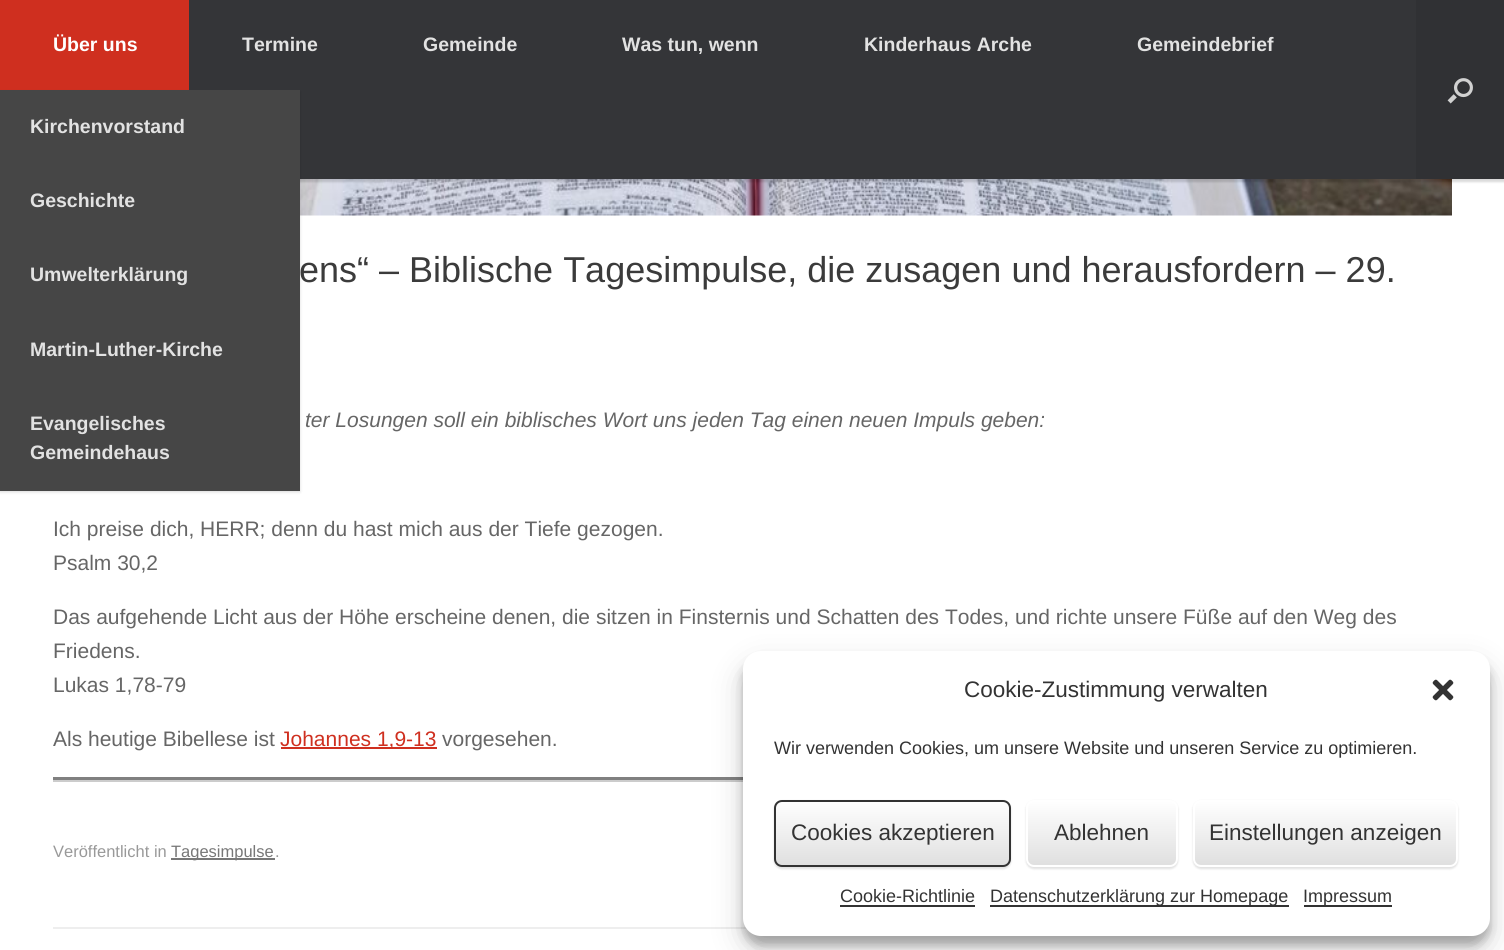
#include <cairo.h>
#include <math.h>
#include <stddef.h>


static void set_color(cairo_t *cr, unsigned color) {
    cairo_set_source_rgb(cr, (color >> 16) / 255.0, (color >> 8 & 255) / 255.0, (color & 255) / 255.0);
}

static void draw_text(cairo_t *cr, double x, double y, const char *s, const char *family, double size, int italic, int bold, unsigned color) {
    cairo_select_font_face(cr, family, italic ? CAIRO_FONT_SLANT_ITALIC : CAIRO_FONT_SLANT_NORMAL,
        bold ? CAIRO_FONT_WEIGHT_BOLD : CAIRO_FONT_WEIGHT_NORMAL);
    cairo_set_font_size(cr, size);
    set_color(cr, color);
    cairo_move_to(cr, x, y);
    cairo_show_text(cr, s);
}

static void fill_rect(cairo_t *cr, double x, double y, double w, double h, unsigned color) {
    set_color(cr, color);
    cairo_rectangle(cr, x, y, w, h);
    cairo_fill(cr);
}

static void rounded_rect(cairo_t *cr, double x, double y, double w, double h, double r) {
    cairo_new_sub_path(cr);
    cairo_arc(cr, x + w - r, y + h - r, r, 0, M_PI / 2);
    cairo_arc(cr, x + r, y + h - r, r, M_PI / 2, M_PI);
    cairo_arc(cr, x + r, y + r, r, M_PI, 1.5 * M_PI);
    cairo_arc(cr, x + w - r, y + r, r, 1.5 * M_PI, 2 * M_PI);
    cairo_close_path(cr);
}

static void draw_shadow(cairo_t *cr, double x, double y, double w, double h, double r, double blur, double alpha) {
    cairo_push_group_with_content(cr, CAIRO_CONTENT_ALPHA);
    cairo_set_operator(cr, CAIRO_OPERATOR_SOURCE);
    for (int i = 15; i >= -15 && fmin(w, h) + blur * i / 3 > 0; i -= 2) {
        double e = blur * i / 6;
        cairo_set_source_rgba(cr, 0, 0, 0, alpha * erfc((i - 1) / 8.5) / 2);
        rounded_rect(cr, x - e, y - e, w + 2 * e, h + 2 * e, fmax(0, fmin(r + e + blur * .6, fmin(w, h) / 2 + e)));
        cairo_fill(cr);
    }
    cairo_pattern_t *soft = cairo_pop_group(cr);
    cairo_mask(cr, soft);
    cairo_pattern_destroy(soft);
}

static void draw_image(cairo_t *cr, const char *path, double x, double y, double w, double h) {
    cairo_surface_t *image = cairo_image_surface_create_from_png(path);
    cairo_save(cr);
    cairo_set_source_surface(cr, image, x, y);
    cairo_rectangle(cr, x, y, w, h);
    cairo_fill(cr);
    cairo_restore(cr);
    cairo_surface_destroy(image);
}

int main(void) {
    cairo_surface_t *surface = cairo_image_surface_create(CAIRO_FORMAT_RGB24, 1504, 950);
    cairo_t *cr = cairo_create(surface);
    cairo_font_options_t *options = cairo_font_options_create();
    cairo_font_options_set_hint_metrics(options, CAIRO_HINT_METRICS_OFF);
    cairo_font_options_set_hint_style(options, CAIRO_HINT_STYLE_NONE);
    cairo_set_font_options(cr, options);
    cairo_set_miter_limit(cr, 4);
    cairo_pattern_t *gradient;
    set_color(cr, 0xFFFFFF);
    cairo_paint(cr);
    draw_image(cr, "assets/img2.png", 300, 179, 1152, 37);
    set_color(cr, 0x000000);
    draw_shadow(cr, 0, 3, 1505, 179, 0, 1, 0.15);
    fill_rect(cr, 189, 0, 1227, 179, 0x343538);
    fill_rect(cr, 0, 0, 189, 90, 0xCF2F1F);
    draw_text(cr, 53, 51, "Über uns", "Liberation Sans", 19.5, 0, 1, 0xFFFFFF);
    set_color(cr, 0x000000);
    draw_shadow(cr, 0, 92, 300, 400, 0, 1.5, 0.15);
    fill_rect(cr, 0, 90, 300, 401, 0x464646);
    draw_text(cr, 30, 133, "Kirchenvorstand", "Liberation Sans", 19.5, 0, 1, 0xE2E2E2);
    draw_text(cr, 30, 207, "Geschichte", "Liberation Sans", 19.5, 0, 1, 0xE2E2E2);
    draw_text(cr, 30, 281, "Umwelterklärung", "Liberation Sans", 19.5, 0, 1, 0xE2E2E2);
    draw_text(cr, 30, 356, "Martin-Luther-Kirche", "Liberation Sans", 19.5, 0, 1, 0xE2E2E2);
    draw_text(cr, 30, 430, "Evangelisches", "Liberation Sans", 19.5, 0, 1, 0xE2E2E2);
    draw_text(cr, 30, 459, "Gemeindehaus", "Liberation Sans", 19.5, 0, 1, 0xE2E2E2);
    draw_text(cr, 242, 51, "Termine", "Liberation Sans", 19.5, 0, 1, 0xE2E2E2);
    draw_text(cr, 423, 51, "Gemeinde", "Liberation Sans", 19.5, 0, 1, 0xE2E2E2);
    draw_text(cr, 622, 51, "Was tun, wenn", "Liberation Sans", 19.5, 0, 1, 0xE2E2E2);
    draw_text(cr, 864, 51, "Kinderhaus Arche", "Liberation Sans", 19.5, 0, 1, 0xE2E2E2);
    draw_text(cr, 1137, 51, "Gemeindebrief", "Liberation Sans", 19.5, 0, 1, 0xE2E2E2);
    fill_rect(cr, 1416, 0, 88, 179, 0x303134);
    draw_image(cr, "assets/img1.png", 1447, 78, 26, 26);
    fill_rect(cr, 53, 927, 694, 2, 0xEEEEEE);
    draw_text(cr, 299, 282, "ens“ – Biblische Tagesimpulse, die zusagen und herausfordern – 29.", "Liberation Sans", 36, 0, 0, 0x3B3B3B);
    draw_text(cr, 305, 427, "ter Losungen soll ein biblisches Wort uns jeden Tag einen neuen Impuls geben:", "Liberation Sans", 21, 1, 0, 0x666666);
    draw_text(cr, 53, 536, "Ich preise dich, HERR; denn du hast mich aus der Tiefe gezogen.", "Liberation Sans", 21, 0, 0, 0x666666);
    draw_text(cr, 53, 570, "Psalm 30,2", "Liberation Sans", 21, 0, 0, 0x666666);
    draw_text(cr, 53, 624, "Das aufgehende Licht aus der Höhe erscheine denen, die sitzen in Finsternis und Schatten des Todes, und richte unsere Füße auf den Weg des", "Liberation Sans", 21, 0, 0, 0x666666);
    draw_text(cr, 53, 658, "Friedens.", "Liberation Sans", 21, 0, 0, 0x666666);
    draw_text(cr, 53, 692, "Lukas 1,78-79", "Liberation Sans", 21, 0, 0, 0x666666);
    draw_text(cr, 53, 746, "Als heutige Bibellese ist", "Liberation Sans", 21, 0, 0, 0x666666);
    fill_rect(cr, 281, 747, 156, 2, 0xCF2F1F);
    draw_text(cr, 280, 746, "Johannes 1,9-13", "Liberation Sans", 21, 0, 0, 0xCF2F1F);
    draw_text(cr, 442, 746, "vorgesehen.", "Liberation Sans", 21, 0, 0, 0x666666);
    fill_rect(cr, 53, 780, 690, 2, 0xCCCCCC);
    fill_rect(cr, 53, 777, 690, 3, 0x808080);
    draw_text(cr, 53, 857, "Veröffentlicht in", "Liberation Sans", 16.5, 0, 0, 0x999999);
    fill_rect(cr, 171, 858, 104, 2, 0x777777);
    draw_text(cr, 171, 857, "Tagesimpulse", "Liberation Sans", 16.5, 0, 0, 0x777777);
    draw_text(cr, 275, 857, ".", "Liberation Sans", 16.5, 0, 0, 0x999999);
    set_color(cr, 0x000000);
    draw_shadow(cr, 743, 660, 747, 285, 18, 4.5, 0.23);
    draw_shadow(cr, 743, 666, 747, 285, 18, 15, 0.19);
    set_color(cr, 0xFFFFFF);
    rounded_rect(cr, 744, 652, 745, 283, 17);
    cairo_fill_preserve(cr);
    cairo_stroke(cr);
    draw_text(cr, 964, 697, "Cookie-Zustimmung verwalten", "Liberation Sans", 22.5, 0, 0, 0x333333);
    draw_image(cr, "assets/img3.png", 1432, 679, 22, 22);
    draw_text(cr, 774, 754, "Wir verwenden Cookies, um unsere Website und unseren Service zu optimieren.", "Liberation Sans", 18, 0, 0, 0x333333);
    set_color(cr, 0x000000);
    draw_shadow(cr, 774, 801, 237, 68, 8, 1, 0.12);
    cairo_save(cr);
    rounded_rect(cr, 774, 800, 237, 67, 8);
    cairo_clip(cr);
    gradient = cairo_pattern_create_linear(776, 866, 776, 801);
    cairo_pattern_add_color_stop_rgba(gradient, 0, 0.875, 0.875, 0.875, 1);
    cairo_pattern_add_color_stop_rgba(gradient, 1, 1, 1, 1, 1);
    cairo_set_source(cr, gradient);
    cairo_pattern_destroy(gradient);
    cairo_rectangle(cr, 774, 801, 237, 65);
    cairo_fill(cr);
    cairo_restore(cr);
    rounded_rect(cr, 775, 801, 235, 65, 7);
    set_color(cr, 0x333333);
    cairo_stroke(cr);
    draw_text(cr, 791, 840, "Cookies akzeptieren", "Liberation Sans", 22.5, 0, 0, 0x333333);
    set_color(cr, 0x000000);
    draw_shadow(cr, 1026, 801, 152, 68, 8, 1, 0.12);
    cairo_save(cr);
    rounded_rect(cr, 1026, 800, 152, 67, 8);
    cairo_clip(cr);
    gradient = cairo_pattern_create_linear(1028, 866, 1028, 801);
    cairo_pattern_add_color_stop_rgba(gradient, 0, 0.875, 0.875, 0.875, 1);
    cairo_pattern_add_color_stop_rgba(gradient, 1, 1, 1, 1, 1);
    cairo_set_source(cr, gradient);
    cairo_pattern_destroy(gradient);
    cairo_rectangle(cr, 1026, 801, 152, 65);
    cairo_fill(cr);
    cairo_restore(cr);
    rounded_rect(cr, 1027, 801, 150, 65, 7);
    set_color(cr, 0xFFFFFF);
    cairo_stroke(cr);
    draw_text(cr, 1054, 840, "Ablehnen", "Liberation Sans", 22.5, 0, 0, 0x333333);
    set_color(cr, 0x000000);
    draw_shadow(cr, 1193, 801, 265, 68, 8, 1, 0.12);
    cairo_save(cr);
    rounded_rect(cr, 1193, 800, 265, 67, 8);
    cairo_clip(cr);
    gradient = cairo_pattern_create_linear(1194, 866, 1194, 801);
    cairo_pattern_add_color_stop_rgba(gradient, 0, 0.875, 0.875, 0.875, 1);
    cairo_pattern_add_color_stop_rgba(gradient, 1, 1, 1, 1, 1);
    cairo_set_source(cr, gradient);
    cairo_pattern_destroy(gradient);
    cairo_rectangle(cr, 1193, 801, 265, 65);
    cairo_fill(cr);
    cairo_restore(cr);
    rounded_rect(cr, 1194, 801, 263, 65, 7);
    set_color(cr, 0xFFFFFF);
    cairo_stroke(cr);
    draw_text(cr, 1209, 840, "Einstellungen anzeigen", "Liberation Sans", 22.5, 0, 0, 0x333333);
    draw_text(cr, 840, 902, "Cookie-Richtlinie", "Liberation Sans", 18, 0, 0, 0x333333);
    fill_rect(cr, 840, 905, 135, 2, 0x333333);
    fill_rect(cr, 990, 905, 299, 2, 0x333333);
    draw_text(cr, 990, 902, "Datenschutzerklärung zur Homepage", "Liberation Sans", 18, 0, 0, 0x333333);
    fill_rect(cr, 1304, 905, 88, 2, 0x333333);
    draw_text(cr, 1303, 902, "Impressum", "Liberation Sans", 18, 0, 0, 0x333333);
    cairo_surface_write_to_png(surface, "output.png");
    cairo_font_options_destroy(options);
    cairo_destroy(cr);
    cairo_surface_destroy(surface);
    return 0;
}
